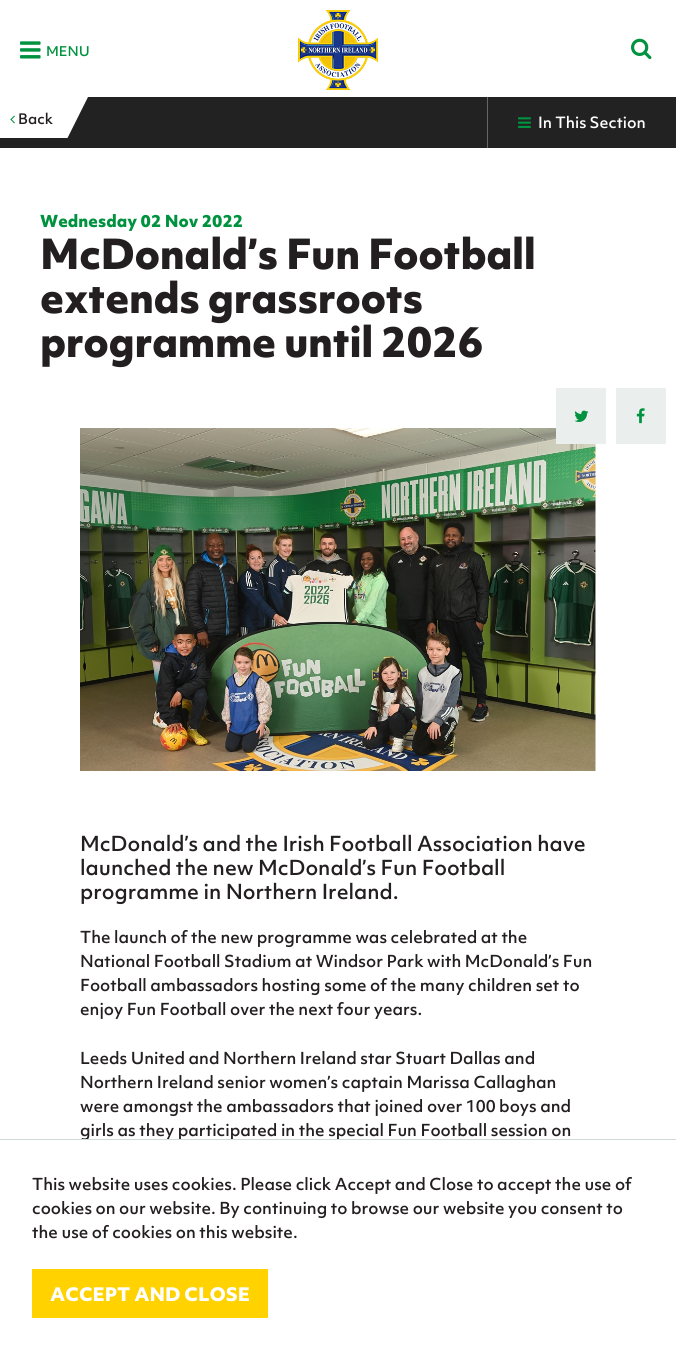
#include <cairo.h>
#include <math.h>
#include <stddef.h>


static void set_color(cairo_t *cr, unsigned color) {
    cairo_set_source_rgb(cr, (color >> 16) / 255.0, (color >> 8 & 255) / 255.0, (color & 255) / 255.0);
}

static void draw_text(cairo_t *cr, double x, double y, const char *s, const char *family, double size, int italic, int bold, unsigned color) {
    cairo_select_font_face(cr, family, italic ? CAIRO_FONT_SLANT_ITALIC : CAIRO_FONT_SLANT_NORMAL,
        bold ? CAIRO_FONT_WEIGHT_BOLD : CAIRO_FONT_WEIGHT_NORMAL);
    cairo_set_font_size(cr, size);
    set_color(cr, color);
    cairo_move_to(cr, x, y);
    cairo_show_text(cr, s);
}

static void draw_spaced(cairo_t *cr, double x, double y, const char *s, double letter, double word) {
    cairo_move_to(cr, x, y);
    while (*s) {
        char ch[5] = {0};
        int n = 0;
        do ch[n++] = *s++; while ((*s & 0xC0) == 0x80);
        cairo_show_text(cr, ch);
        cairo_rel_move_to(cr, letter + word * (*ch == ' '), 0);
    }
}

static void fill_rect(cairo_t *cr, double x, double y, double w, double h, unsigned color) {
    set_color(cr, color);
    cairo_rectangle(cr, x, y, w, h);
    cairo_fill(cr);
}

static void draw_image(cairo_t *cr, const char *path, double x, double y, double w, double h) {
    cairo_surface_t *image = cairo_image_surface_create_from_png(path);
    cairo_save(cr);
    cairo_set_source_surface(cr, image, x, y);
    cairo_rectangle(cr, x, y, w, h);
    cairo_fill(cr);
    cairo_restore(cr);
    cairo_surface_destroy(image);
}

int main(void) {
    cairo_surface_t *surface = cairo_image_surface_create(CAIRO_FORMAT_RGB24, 676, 1366);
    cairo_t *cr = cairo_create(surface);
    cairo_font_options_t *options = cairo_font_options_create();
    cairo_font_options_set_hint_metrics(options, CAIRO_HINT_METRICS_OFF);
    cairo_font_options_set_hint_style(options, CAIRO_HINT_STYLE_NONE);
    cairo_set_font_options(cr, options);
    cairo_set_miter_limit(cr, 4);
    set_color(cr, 0x222222);
    cairo_paint(cr);
    fill_rect(cr, 0, 0, 676, 97, 0xFFFFFF);
    draw_image(cr, "assets/img1.png", 20, 41, 21, 18);
    draw_text(cr, 46, 56, "MENU", "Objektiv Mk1 Medium", 13, 0, 0, 0x00923F);
    draw_image(cr, "assets/img2.png", 298, 10, 80, 80);
    draw_image(cr, "assets/img3.png", 631, 38, 21, 22);
    fill_rect(cr, 0, 97, 63, 41, 0xFFFFFF);
    draw_image(cr, "assets/img4.png", 10, 115, 5, 9);
    draw_text(cr, 18, 124, "Back", "Objektiv Mk1 Medium", 14, 0, 0, 0x231F20);
    cairo_save(cr);
    cairo_rectangle(cr, 0, 97, 237, 41);
    cairo_clip(cr);
    set_color(cr, 0xFFFFFF);
    cairo_new_path(cr);
    cairo_move_to(cr, 63, 97);
    cairo_line_to(cr, 88, 97);
    cairo_line_to(cr, 63, 147);
    cairo_close_path(cr);
    cairo_fill(cr);
    cairo_restore(cr);
    fill_rect(cr, 487, 97, 1, 51, 0x666666);
    draw_image(cr, "assets/img5.png", 518, 117, 13, 11);
    draw_text(cr, 538, 128, "In This Section", "Objektiv Mk1 Medium", 15, 0, 0, 0xFFFFFF);
    fill_rect(cr, 0, 148, 676, 991, 0xFFFFFF);
    draw_text(cr, 40, 227, "Wednesday 02 Nov 2022", "Objektiv Mk1", 16, 0, 1, 0x00923F);
    cairo_set_font_size(cr, 40);
    set_color(cr, 0x231F20);
    draw_spaced(cr, 40, 269, "McDonald’s Fun Football", -0.4, 0);
    draw_spaced(cr, 40, 313, "extends grassroots", -0.4, 0);
    draw_spaced(cr, 40, 357, "programme until 2026", -0.4, 0);
    draw_image(cr, "assets/img8.png", 80, 428, 516, 343);
    fill_rect(cr, 556, 388, 50, 56, 0xEAEEED);
    draw_image(cr, "assets/img6.png", 574, 410, 15, 12);
    fill_rect(cr, 616, 388, 50, 56, 0xEAEEED);
    draw_image(cr, "assets/img7.png", 636, 408, 9, 16);
    draw_text(cr, 80, 851, "McDonald’s and the Irish Football Association have", "Objektiv Mk1 Medium", 20, 0, 0, 0x231F20);
    draw_text(cr, 80, 875, "launched the new McDonald’s Fun Football", "Objektiv Mk1 Medium", 20, 0, 0, 0x231F20);
    draw_text(cr, 80, 899, "programme in Northern Ireland.", "Objektiv Mk1 Medium", 20, 0, 0, 0x231F20);
    draw_text(cr, 80, 943, "The launch of the new programme was celebrated at the", "Objektiv Mk1 Medium", 16, 0, 0, 0x231F20);
    draw_text(cr, 80, 967, "National Football Stadium at Windsor Park with McDonald’s Fun", "Objektiv Mk1 Medium", 16, 0, 0, 0x231F20);
    draw_text(cr, 80, 991, "Football ambassadors hosting some of the many children set to", "Objektiv Mk1 Medium", 16, 0, 0, 0x231F20);
    draw_text(cr, 80, 1015, "enjoy Fun Football over the next four years.", "Objektiv Mk1 Medium", 16, 0, 0, 0x231F20);
    draw_text(cr, 80, 1064, "Leeds United and Northern Ireland star Stuart Dallas and", "Objektiv Mk1 Medium", 16, 0, 0, 0x231F20);
    draw_text(cr, 80, 1088, "Northern Ireland senior women’s captain Marissa Callaghan", "Objektiv Mk1 Medium", 16, 0, 0, 0x231F20);
    draw_text(cr, 80, 1112, "were amongst the ambassadors that joined over 100 boys and", "Objektiv Mk1 Medium", 16, 0, 0, 0x231F20);
    draw_text(cr, 80, 1136, "girls as they participated in the special Fun Football session on", "Objektiv Mk1 Medium", 16, 0, 0, 0x231F20);
    fill_rect(cr, 0, 1140, 676, 226, 0xFFFFFF);
    fill_rect(cr, 0, 1139, 676, 1, 0xD0D8D9);
    draw_text(cr, 32, 1190, "This website uses cookies. Please click Accept and Close to accept the use of", "Objektiv Mk1 Medium", 16, 0, 0, 0x231F20);
    draw_text(cr, 32, 1214, "cookies on our website. By continuing to browse our website you consent to", "Objektiv Mk1 Medium", 16, 0, 0, 0x231F20);
    draw_text(cr, 32, 1238, "the use of cookies on this website.", "Objektiv Mk1 Medium", 16, 0, 0, 0x231F20);
    fill_rect(cr, 32, 1269, 236, 49, 0xFFD200);
    draw_text(cr, 50, 1301, "ACCEPT AND CLOSE", "Objektiv Mk1", 18, 0, 1, 0xFFFFFF);
    cairo_surface_write_to_png(surface, "output.png");
    cairo_font_options_destroy(options);
    cairo_destroy(cr);
    cairo_surface_destroy(surface);
    return 0;
}
